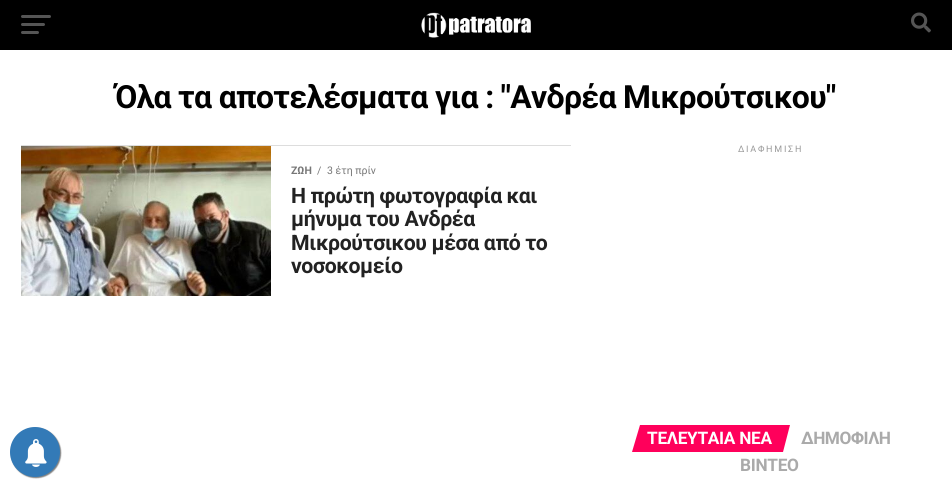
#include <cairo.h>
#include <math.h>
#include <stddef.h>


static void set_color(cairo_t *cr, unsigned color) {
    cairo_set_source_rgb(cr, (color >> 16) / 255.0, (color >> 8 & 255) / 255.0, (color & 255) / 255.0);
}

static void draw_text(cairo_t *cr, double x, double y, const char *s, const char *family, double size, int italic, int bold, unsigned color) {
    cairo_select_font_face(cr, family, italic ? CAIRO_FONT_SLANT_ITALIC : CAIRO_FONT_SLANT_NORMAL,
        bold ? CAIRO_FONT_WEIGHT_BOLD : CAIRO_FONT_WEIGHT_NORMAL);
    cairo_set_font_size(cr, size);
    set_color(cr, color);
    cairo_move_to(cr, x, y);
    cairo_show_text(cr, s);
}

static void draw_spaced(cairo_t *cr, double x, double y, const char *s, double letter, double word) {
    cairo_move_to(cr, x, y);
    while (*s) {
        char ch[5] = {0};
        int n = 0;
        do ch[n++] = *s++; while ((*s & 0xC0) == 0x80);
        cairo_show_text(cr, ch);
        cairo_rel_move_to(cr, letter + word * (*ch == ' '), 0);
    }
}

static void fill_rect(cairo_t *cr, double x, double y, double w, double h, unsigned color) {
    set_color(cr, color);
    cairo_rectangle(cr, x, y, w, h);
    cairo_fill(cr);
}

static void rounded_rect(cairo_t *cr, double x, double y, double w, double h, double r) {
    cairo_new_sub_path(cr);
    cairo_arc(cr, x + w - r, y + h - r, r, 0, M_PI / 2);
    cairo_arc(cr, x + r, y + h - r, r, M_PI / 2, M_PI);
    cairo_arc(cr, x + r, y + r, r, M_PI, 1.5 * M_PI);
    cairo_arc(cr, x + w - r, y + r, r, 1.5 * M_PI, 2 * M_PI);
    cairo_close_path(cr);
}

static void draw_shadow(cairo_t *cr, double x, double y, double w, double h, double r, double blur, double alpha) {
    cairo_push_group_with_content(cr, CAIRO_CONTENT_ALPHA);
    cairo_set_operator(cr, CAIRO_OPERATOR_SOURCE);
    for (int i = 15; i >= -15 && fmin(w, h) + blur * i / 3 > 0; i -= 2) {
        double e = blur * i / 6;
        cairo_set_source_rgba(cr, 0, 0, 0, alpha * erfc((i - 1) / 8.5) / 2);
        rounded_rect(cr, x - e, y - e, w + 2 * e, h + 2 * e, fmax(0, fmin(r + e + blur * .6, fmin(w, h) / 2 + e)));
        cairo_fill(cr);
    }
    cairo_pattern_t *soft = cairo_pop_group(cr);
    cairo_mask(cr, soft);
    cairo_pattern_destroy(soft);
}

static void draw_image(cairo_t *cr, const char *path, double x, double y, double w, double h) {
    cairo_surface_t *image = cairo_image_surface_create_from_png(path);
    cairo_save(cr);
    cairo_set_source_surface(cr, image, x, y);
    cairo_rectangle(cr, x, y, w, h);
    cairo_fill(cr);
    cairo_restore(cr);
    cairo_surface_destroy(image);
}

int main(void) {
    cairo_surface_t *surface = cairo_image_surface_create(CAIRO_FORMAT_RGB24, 952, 487);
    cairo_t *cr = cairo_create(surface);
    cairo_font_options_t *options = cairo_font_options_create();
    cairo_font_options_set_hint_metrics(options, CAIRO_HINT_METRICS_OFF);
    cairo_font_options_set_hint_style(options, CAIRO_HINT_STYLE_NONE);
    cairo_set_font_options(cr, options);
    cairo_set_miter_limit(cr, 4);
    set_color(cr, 0xFFFFFF);
    cairo_paint(cr);
    set_color(cr, 0x000000);
    draw_shadow(cr, 11, 428, 50, 50, 25, 0.5, 0.5);
    set_color(cr, 0x337AB7);
    cairo_arc(cr, 35, 452, 25, 0, 2 * M_PI);
    cairo_fill(cr);
    draw_image(cr, "assets/img1.png", 25, 439, 22, 28);
    fill_rect(cr, 0, 0, 952, 50, 0x000000);
    set_color(cr, 0x555555);
    rounded_rect(cr, 21, 15, 30, 3, 1.5);
    cairo_fill(cr);
    rounded_rect(cr, 21, 23, 24, 3, 1.5);
    cairo_fill(cr);
    rounded_rect(cr, 21, 31, 18, 3, 1.5);
    cairo_fill(cr);
    draw_image(cr, "assets/img2.png", 421, 12, 110, 26);
    draw_image(cr, "assets/img3.png", 911, 12, 20, 21);
    cairo_select_font_face(cr, "Roboto", CAIRO_FONT_SLANT_NORMAL, CAIRO_FONT_WEIGHT_BOLD);
    cairo_set_font_size(cr, 31.9);
    set_color(cr, 0x000000);
    draw_spaced(cr, 115, 108, "Όλα τα αποτελέσματα για : \"Ανδρέα Μικρούτσικου\"", -0.65, 0);
    fill_rect(cr, 21, 145, 550, 1, 0xDDDDDD);
    draw_image(cr, "assets/img4.png", 21, 146, 250, 150);
    draw_text(cr, 291, 174, "ΖΩΗ", "Roboto", 10.5, 0, 1, 0x777777);
    draw_text(cr, 317, 174, "/", "Roboto", 10.5, 0, 0, 0x777777);
    draw_text(cr, 327, 174, "3 έτη πρίν", "Roboto", 10.5, 0, 0, 0x777777);
    cairo_select_font_face(cr, "Roboto", CAIRO_FONT_SLANT_NORMAL, CAIRO_FONT_WEIGHT_BOLD);
    cairo_set_font_size(cr, 21.25);
    set_color(cr, 0x222222);
    draw_spaced(cr, 291, 203, "Η πρώτη φωτογραφία και", -0.4, 0);
    draw_spaced(cr, 291, 226, "μήνυμα του Ανδρέα", -0.4, 0);
    draw_spaced(cr, 291, 250, "Μικρούτσικου μέσα από το", -0.4, 0);
    draw_spaced(cr, 291, 273, "νοσοκομείο", -0.4, 0);
    cairo_select_font_face(cr, "Roboto", CAIRO_FONT_SLANT_NORMAL, CAIRO_FONT_WEIGHT_NORMAL);
    cairo_set_font_size(cr, 9);
    set_color(cr, 0x999999);
    draw_spaced(cr, 738, 152, "ΔΙΑΦΗΜΙΣΗ", 1.75, 0);
    set_color(cr, 0xFF005B);
    cairo_new_path(cr);
    cairo_move_to(cr, 640, 425);
    cairo_line_to(cr, 790, 425);
    cairo_line_to(cr, 783, 452);
    cairo_line_to(cr, 632, 452);
    cairo_close_path(cr);
    cairo_fill(cr);
    cairo_select_font_face(cr, "Roboto", CAIRO_FONT_SLANT_NORMAL, CAIRO_FONT_WEIGHT_BOLD);
    cairo_set_font_size(cr, 17.25);
    set_color(cr, 0xFFFFFF);
    draw_spaced(cr, 647, 444, "ΤΕΛΕΥΤΑΙΑ ΝΕΑ", -0.3, 0);
    set_color(cr, 0xAAAAAA);
    draw_spaced(cr, 801, 444, "ΔΗΜΟΦΙΛΗ", -0.5, 0);
    draw_spaced(cr, 740, 471, "ΒΙΝΤΕΟ", -0.3, 0);
    cairo_surface_write_to_png(surface, "output.png");
    cairo_font_options_destroy(options);
    cairo_destroy(cr);
    cairo_surface_destroy(surface);
    return 0;
}
